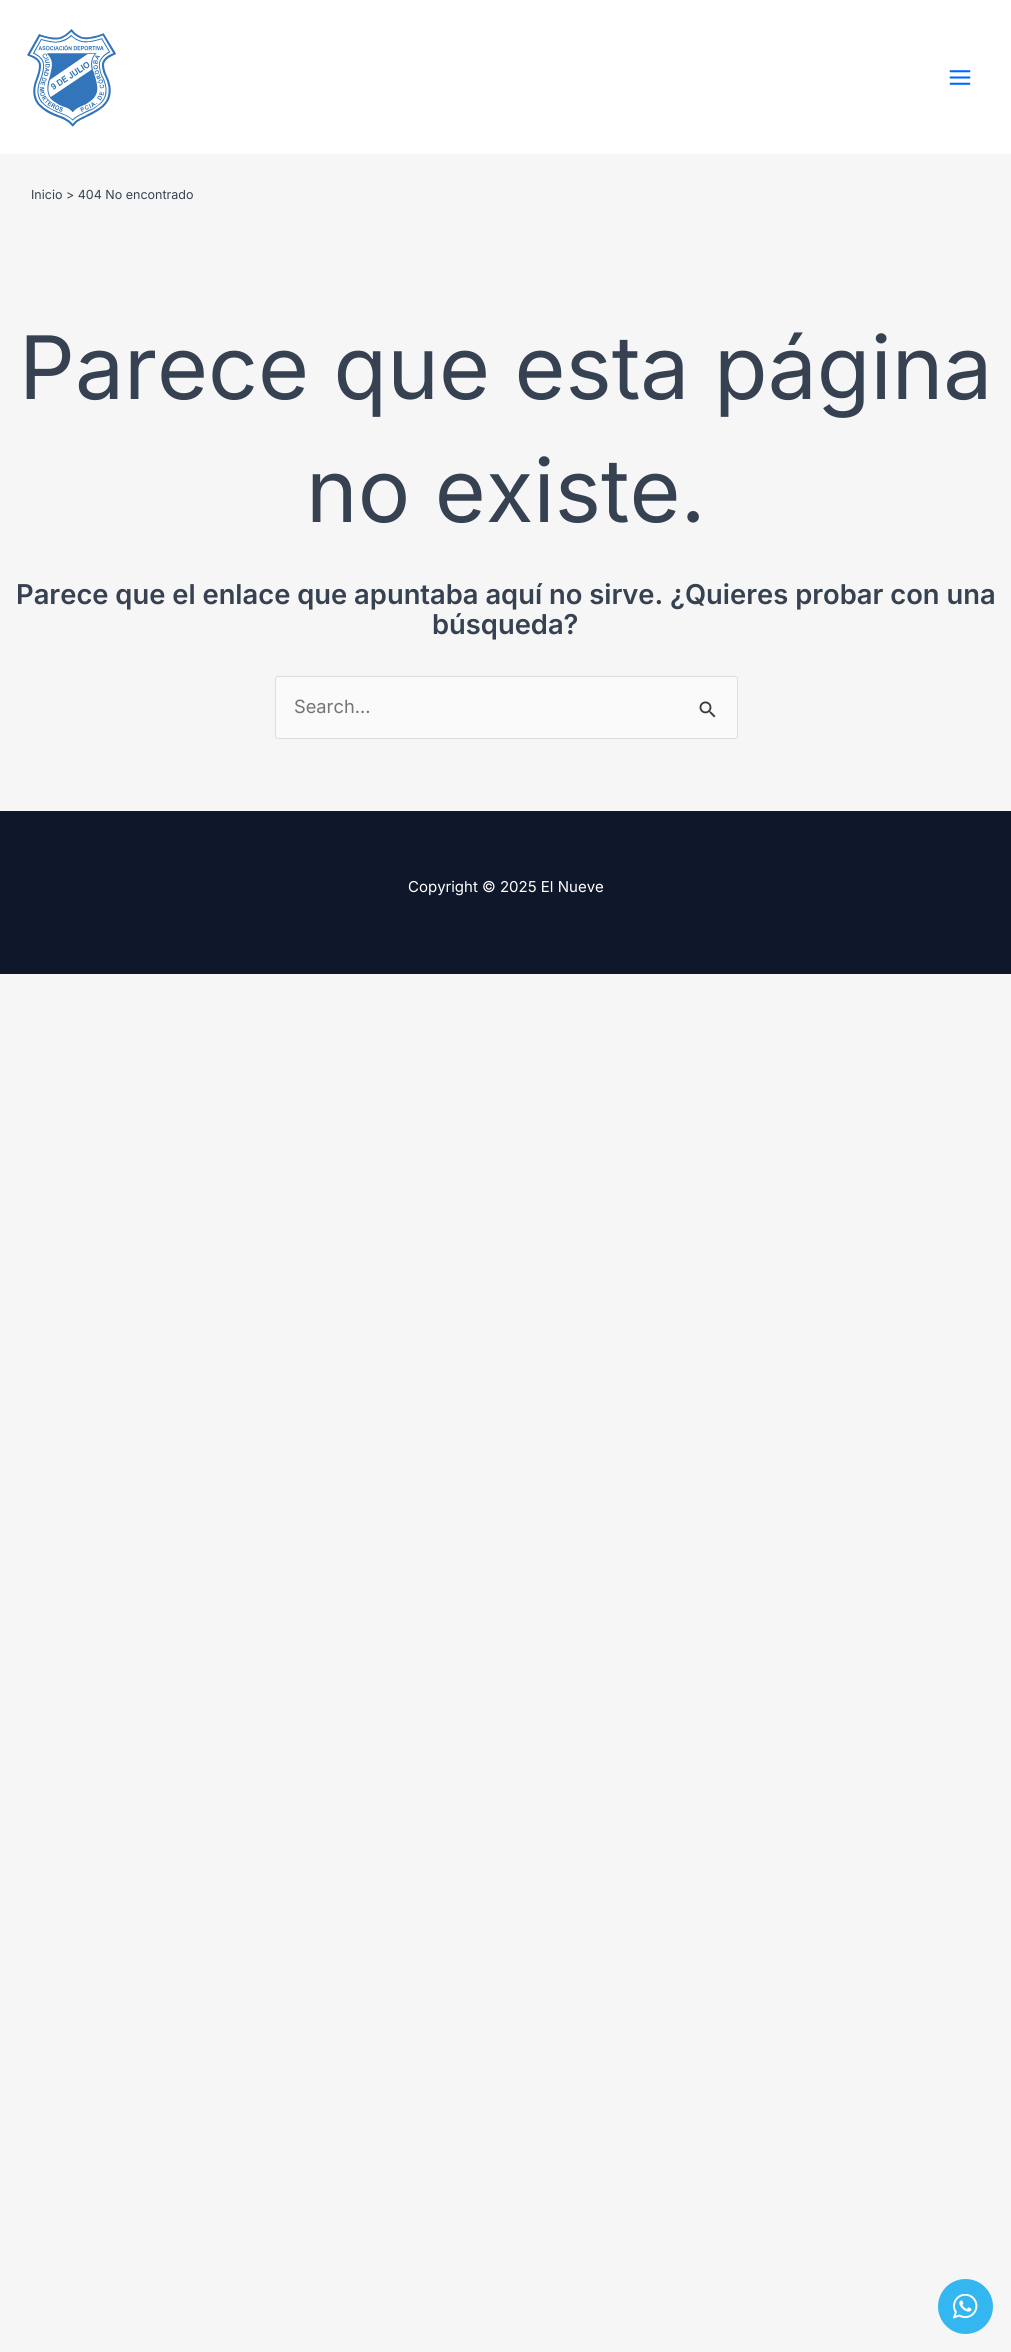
#include <cairo.h>
#include <math.h>
#include <stddef.h>


static void set_color(cairo_t *cr, unsigned color) {
    cairo_set_source_rgb(cr, (color >> 16) / 255.0, (color >> 8 & 255) / 255.0, (color & 255) / 255.0);
}

static void draw_text(cairo_t *cr, double x, double y, const char *s, const char *family, double size, int italic, int bold, unsigned color) {
    cairo_select_font_face(cr, family, italic ? CAIRO_FONT_SLANT_ITALIC : CAIRO_FONT_SLANT_NORMAL,
        bold ? CAIRO_FONT_WEIGHT_BOLD : CAIRO_FONT_WEIGHT_NORMAL);
    cairo_set_font_size(cr, size);
    set_color(cr, color);
    cairo_move_to(cr, x, y);
    cairo_show_text(cr, s);
}

static void fill_rect(cairo_t *cr, double x, double y, double w, double h, unsigned color) {
    set_color(cr, color);
    cairo_rectangle(cr, x, y, w, h);
    cairo_fill(cr);
}

static void rounded_rect(cairo_t *cr, double x, double y, double w, double h, double r) {
    cairo_new_sub_path(cr);
    cairo_arc(cr, x + w - r, y + h - r, r, 0, M_PI / 2);
    cairo_arc(cr, x + r, y + h - r, r, M_PI / 2, M_PI);
    cairo_arc(cr, x + r, y + r, r, M_PI, 1.5 * M_PI);
    cairo_arc(cr, x + w - r, y + r, r, 1.5 * M_PI, 2 * M_PI);
    cairo_close_path(cr);
}

static void draw_image(cairo_t *cr, const char *path, double x, double y, double w, double h) {
    cairo_surface_t *image = cairo_image_surface_create_from_png(path);
    cairo_save(cr);
    cairo_set_source_surface(cr, image, x, y);
    cairo_rectangle(cr, x, y, w, h);
    cairo_fill(cr);
    cairo_restore(cr);
    cairo_surface_destroy(image);
}

int main(void) {
    cairo_surface_t *surface = cairo_image_surface_create(CAIRO_FORMAT_RGB24, 1011, 2352);
    cairo_t *cr = cairo_create(surface);
    cairo_font_options_t *options = cairo_font_options_create();
    cairo_font_options_set_hint_metrics(options, CAIRO_HINT_METRICS_OFF);
    cairo_font_options_set_hint_style(options, CAIRO_HINT_STYLE_NONE);
    cairo_set_font_options(cr, options);
    cairo_set_miter_limit(cr, 4);
    set_color(cr, 0xF6F6F6);
    cairo_paint(cr);
    fill_rect(cr, 0, 0, 1011, 154, 0xFFFFFF);
    draw_image(cr, "assets/img1.png", 27, 29, 89, 98);
    draw_image(cr, "assets/img2.png", 949, 70, 22, 15);
    draw_text(cr, 31, 199, "Inicio > 404 No encontrado", "Inter", 12.5, 0, 0, 0x364151);
    draw_text(cr, 19, 399, "Parece que esta página", "Inter", 87.5, 0, 0, 0x364151);
    draw_text(cr, 306, 522, "no existe.", "Inter", 87.5, 0, 0, 0x364151);
    draw_text(cr, 16, 604, "Parece que el enlace que apuntaba aquí no sirve. ¿Quieres probar con una", "Inter SemiBold", 27.35, 0, 0, 0x364151);
    draw_text(cr, 432, 634, "búsqueda?", "Inter SemiBold", 27.35, 0, 0, 0x364151);
    set_color(cr, 0xFAFAFA);
    rounded_rect(cr, 275.5, 676.5, 462, 62, 2);
    cairo_fill_preserve(cr);
    set_color(cr, 0xDDDDDD);
    cairo_set_line_width(cr, 1);
    cairo_stroke(cr);
    draw_text(cr, 294, 713, "Search...", "Inter", 18.25, 0, 0, 0x757575);
    draw_image(cr, "assets/img3.png", 699, 701, 17, 17);
    fill_rect(cr, 0, 811, 1011, 163, 0x0F172A);
    draw_text(cr, 408, 892, "Copyright © 2025 El Nueve", "Inter", 15, 0, 0, 0xFFFFFF);
    set_color(cr, 0x34B7F1);
    cairo_new_path(cr);
    cairo_arc(cr, 965.5, 2306.5, 27.5, 0, 2 * M_PI);
    cairo_fill(cr);
    draw_image(cr, "assets/img4.png", 953, 2294, 25, 25);
    cairo_surface_write_to_png(surface, "output.png");
    cairo_font_options_destroy(options);
    cairo_destroy(cr);
    cairo_surface_destroy(surface);
    return 0;
}
